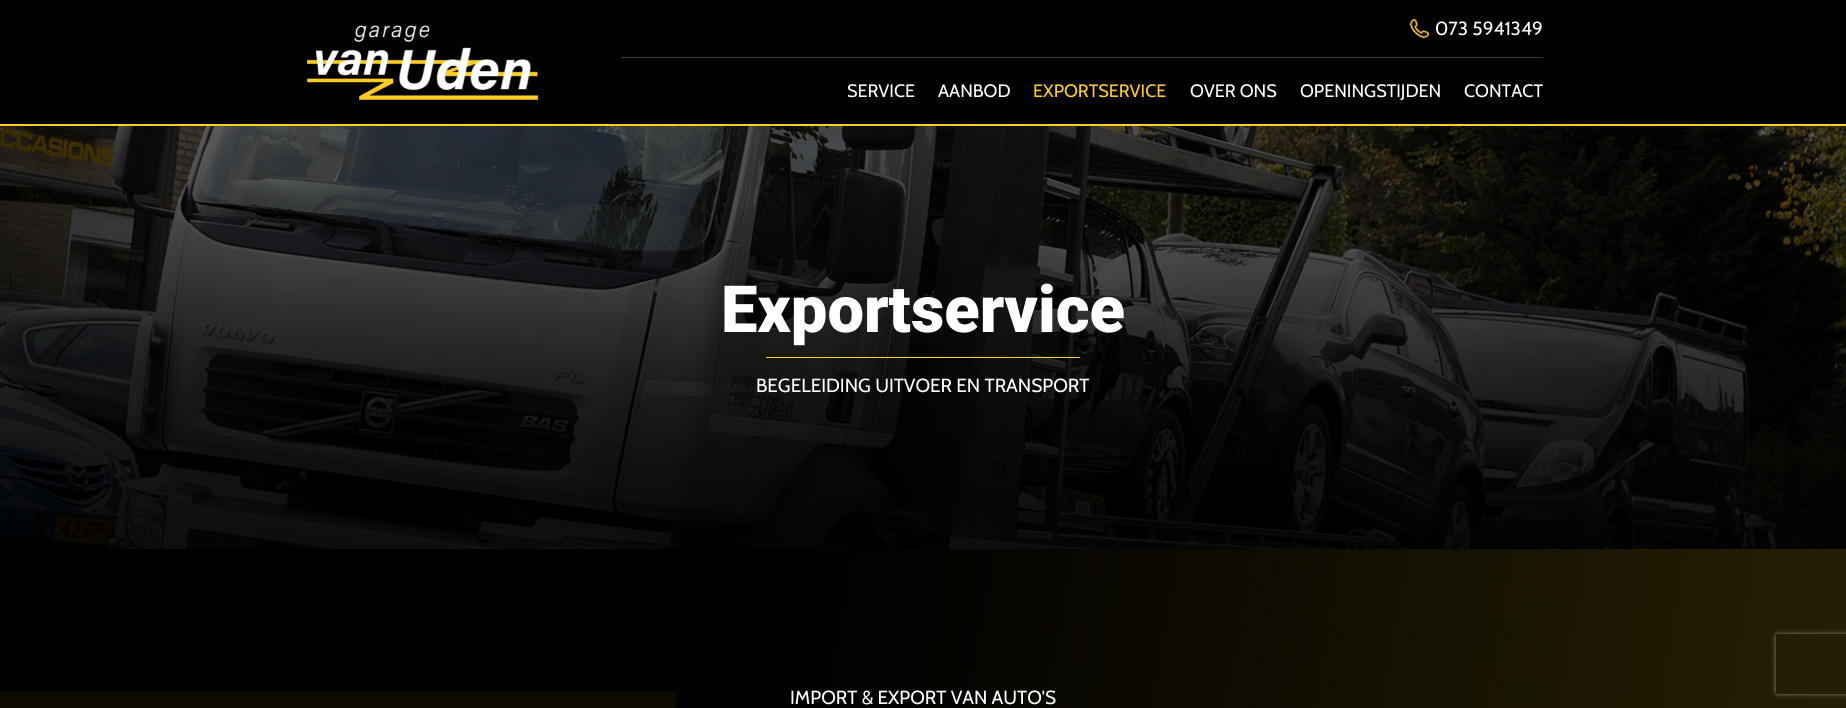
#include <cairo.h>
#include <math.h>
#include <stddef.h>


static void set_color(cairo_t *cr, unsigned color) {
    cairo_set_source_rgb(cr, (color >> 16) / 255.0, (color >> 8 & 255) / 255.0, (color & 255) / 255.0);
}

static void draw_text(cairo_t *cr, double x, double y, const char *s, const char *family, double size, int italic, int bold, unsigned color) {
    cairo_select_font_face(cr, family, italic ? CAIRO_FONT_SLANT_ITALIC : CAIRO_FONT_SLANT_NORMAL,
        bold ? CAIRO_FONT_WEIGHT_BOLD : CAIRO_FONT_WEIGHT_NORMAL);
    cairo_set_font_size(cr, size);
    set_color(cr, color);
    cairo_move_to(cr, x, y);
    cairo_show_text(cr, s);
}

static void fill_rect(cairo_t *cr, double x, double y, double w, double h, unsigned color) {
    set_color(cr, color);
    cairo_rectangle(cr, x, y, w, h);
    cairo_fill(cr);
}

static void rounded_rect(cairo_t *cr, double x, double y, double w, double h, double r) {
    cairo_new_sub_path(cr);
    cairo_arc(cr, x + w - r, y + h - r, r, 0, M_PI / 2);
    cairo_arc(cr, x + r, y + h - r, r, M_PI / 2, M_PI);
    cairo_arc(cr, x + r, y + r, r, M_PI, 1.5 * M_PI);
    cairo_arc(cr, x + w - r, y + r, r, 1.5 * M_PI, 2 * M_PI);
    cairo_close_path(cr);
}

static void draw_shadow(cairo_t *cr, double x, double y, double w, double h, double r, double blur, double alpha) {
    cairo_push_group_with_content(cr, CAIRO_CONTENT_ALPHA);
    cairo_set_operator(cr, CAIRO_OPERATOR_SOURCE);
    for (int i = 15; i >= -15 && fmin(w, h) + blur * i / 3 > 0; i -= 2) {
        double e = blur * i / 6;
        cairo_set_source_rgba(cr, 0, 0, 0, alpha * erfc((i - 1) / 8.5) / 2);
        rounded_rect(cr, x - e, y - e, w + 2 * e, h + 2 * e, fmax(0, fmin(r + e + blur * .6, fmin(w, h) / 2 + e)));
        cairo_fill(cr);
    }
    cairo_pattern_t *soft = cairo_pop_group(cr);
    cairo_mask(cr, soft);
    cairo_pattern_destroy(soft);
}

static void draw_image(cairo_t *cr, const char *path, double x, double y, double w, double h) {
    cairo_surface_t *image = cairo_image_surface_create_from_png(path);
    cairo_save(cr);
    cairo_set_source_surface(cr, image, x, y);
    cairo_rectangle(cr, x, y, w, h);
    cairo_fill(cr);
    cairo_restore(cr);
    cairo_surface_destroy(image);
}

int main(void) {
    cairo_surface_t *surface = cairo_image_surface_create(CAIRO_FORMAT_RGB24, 1846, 708);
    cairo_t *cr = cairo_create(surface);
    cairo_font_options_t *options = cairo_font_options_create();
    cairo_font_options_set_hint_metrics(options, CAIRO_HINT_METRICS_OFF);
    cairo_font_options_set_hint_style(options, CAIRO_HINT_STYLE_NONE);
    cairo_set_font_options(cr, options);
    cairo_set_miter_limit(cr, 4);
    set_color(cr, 0xFFFFFF);
    cairo_paint(cr);
    fill_rect(cr, 0, 0, 1846, 124, 0x000000);
    fill_rect(cr, 0, 124, 1846, 2, 0xFFCE1F);
    draw_image(cr, "assets/img1.png", 307, 25, 232, 75);
    fill_rect(cr, 621, 57, 922, 1, 0x3B3B3B);
    draw_image(cr, "assets/img2.png", 1410, 19, 19, 20);
    draw_text(cr, 1435, 35, "073 5941349", "Cabin", 19, 0, 0, 0xFFFFFF);
    draw_text(cr, 847, 97, "SERVICE", "Cabin", 18, 0, 0, 0xFFFFFF);
    draw_text(cr, 938, 97, "AANBOD", "Cabin", 18, 0, 0, 0xFFFFFF);
    draw_text(cr, 1033, 97, "EXPORTSERVICE", "Cabin", 18, 0, 0, 0xFFCE1F);
    draw_text(cr, 1190, 97, "OVER ONS", "Cabin", 18, 0, 0, 0xFFFFFF);
    draw_text(cr, 1300, 97, "OPENINGSTIJDEN", "Cabin", 18, 0, 0, 0xFFFFFF);
    draw_text(cr, 1464, 97, "CONTACT", "Cabin", 18, 0, 0, 0xFFFFFF);
    draw_image(cr, "assets/img3.png", 0, 126, 1846, 423);
    draw_image(cr, "assets/img4.png", 0, 126, 1846, 423);
    draw_text(cr, 721, 332, "Exportservice", "Roboto Black", 65, 0, 0, 0xFFFFFF);
    fill_rect(cr, 766, 357, 314, 1, 0xFFCE1F);
    draw_text(cr, 756, 392, "BEGELEIDING UITVOER EN TRANSPORT", "Cabin", 19, 0, 0, 0xFFFFFF);
    draw_image(cr, "assets/img5.png", 0, 549, 1846, 159);
    draw_text(cr, 790, 704, "IMPORT & EXPORT VAN AUTO'S", "Cabin", 19, 0, 0, 0xFFFFFF);
    cairo_save(cr);
    cairo_set_fill_rule(cr, CAIRO_FILL_RULE_EVEN_ODD);
    cairo_new_path(cr);
    cairo_move_to(cr, 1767, 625);
    cairo_line_to(cr, 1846, 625);
    cairo_line_to(cr, 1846, 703);
    cairo_line_to(cr, 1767, 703);
    cairo_close_path(cr);
    cairo_move_to(cr, 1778, 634);
    cairo_line_to(cr, 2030, 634);
    cairo_curve_to(cr, 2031, 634, 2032, 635, 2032, 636);
    cairo_line_to(cr, 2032, 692);
    cairo_curve_to(cr, 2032, 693, 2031, 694, 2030, 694);
    cairo_line_to(cr, 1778, 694);
    cairo_curve_to(cr, 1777, 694, 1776, 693, 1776, 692);
    cairo_line_to(cr, 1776, 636);
    cairo_curve_to(cr, 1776, 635, 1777, 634, 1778, 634);
    cairo_close_path(cr);
    cairo_clip(cr);
    set_color(cr, 0x808080);
    draw_shadow(cr, 1776, 634, 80, 60, 2, 2.5, 1);
    cairo_restore(cr);
    cairo_surface_write_to_png(surface, "output.png");
    cairo_font_options_destroy(options);
    cairo_destroy(cr);
    cairo_surface_destroy(surface);
    return 0;
}
